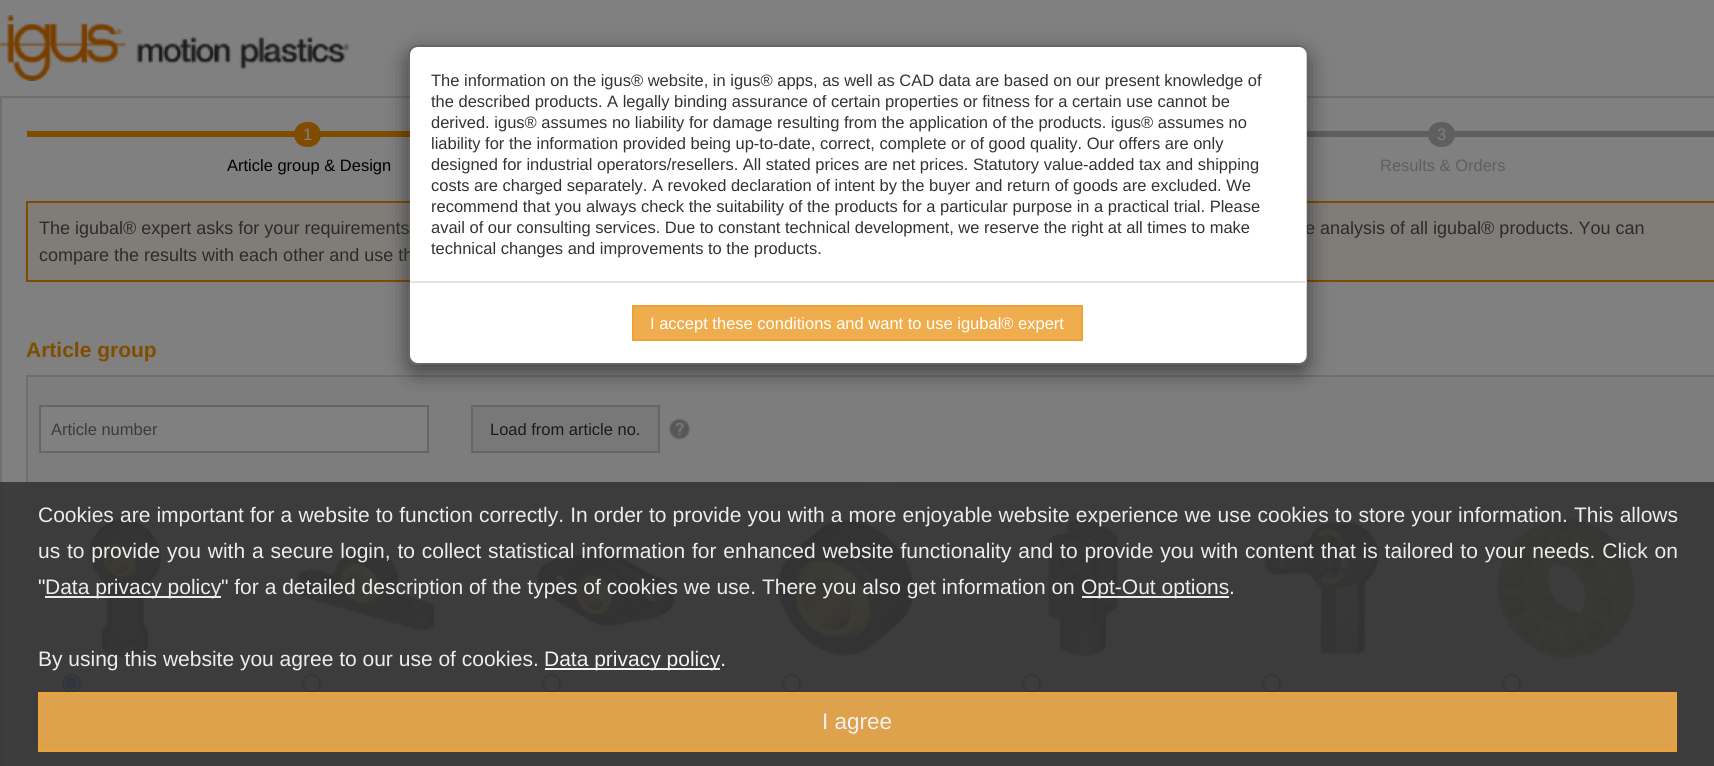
#include <cairo.h>
#include <math.h>
#include <stddef.h>


static void set_color(cairo_t *cr, unsigned color) {
    cairo_set_source_rgb(cr, (color >> 16) / 255.0, (color >> 8 & 255) / 255.0, (color & 255) / 255.0);
}

static void draw_text(cairo_t *cr, double x, double y, const char *s, const char *family, double size, int italic, int bold, unsigned color) {
    cairo_select_font_face(cr, family, italic ? CAIRO_FONT_SLANT_ITALIC : CAIRO_FONT_SLANT_NORMAL,
        bold ? CAIRO_FONT_WEIGHT_BOLD : CAIRO_FONT_WEIGHT_NORMAL);
    cairo_set_font_size(cr, size);
    set_color(cr, color);
    cairo_move_to(cr, x, y);
    cairo_show_text(cr, s);
}

static void draw_spaced(cairo_t *cr, double x, double y, const char *s, double letter, double word) {
    cairo_move_to(cr, x, y);
    while (*s) {
        char ch[5] = {0};
        int n = 0;
        do ch[n++] = *s++; while ((*s & 0xC0) == 0x80);
        cairo_show_text(cr, ch);
        cairo_rel_move_to(cr, letter + word * (*ch == ' '), 0);
    }
}

static void fill_rect(cairo_t *cr, double x, double y, double w, double h, unsigned color) {
    set_color(cr, color);
    cairo_rectangle(cr, x, y, w, h);
    cairo_fill(cr);
}

static void rounded_rect(cairo_t *cr, double x, double y, double w, double h, double r) {
    cairo_new_sub_path(cr);
    cairo_arc(cr, x + w - r, y + h - r, r, 0, M_PI / 2);
    cairo_arc(cr, x + r, y + h - r, r, M_PI / 2, M_PI);
    cairo_arc(cr, x + r, y + r, r, M_PI, 1.5 * M_PI);
    cairo_arc(cr, x + w - r, y + r, r, 1.5 * M_PI, 2 * M_PI);
    cairo_close_path(cr);
}

static void draw_shadow(cairo_t *cr, double x, double y, double w, double h, double r, double blur, double alpha) {
    cairo_push_group_with_content(cr, CAIRO_CONTENT_ALPHA);
    cairo_set_operator(cr, CAIRO_OPERATOR_SOURCE);
    for (int i = 15; i >= -15 && fmin(w, h) + blur * i / 3 > 0; i -= 2) {
        double e = blur * i / 6;
        cairo_set_source_rgba(cr, 0, 0, 0, alpha * erfc((i - 1) / 8.5) / 2);
        rounded_rect(cr, x - e, y - e, w + 2 * e, h + 2 * e, fmax(0, fmin(r + e + blur * .6, fmin(w, h) / 2 + e)));
        cairo_fill(cr);
    }
    cairo_pattern_t *soft = cairo_pop_group(cr);
    cairo_mask(cr, soft);
    cairo_pattern_destroy(soft);
}

static void draw_image(cairo_t *cr, const char *path, double x, double y, double w, double h) {
    cairo_surface_t *image = cairo_image_surface_create_from_png(path);
    cairo_save(cr);
    cairo_set_source_surface(cr, image, x, y);
    cairo_rectangle(cr, x, y, w, h);
    cairo_fill(cr);
    cairo_restore(cr);
    cairo_surface_destroy(image);
}

int main(void) {
    cairo_surface_t *surface = cairo_image_surface_create(CAIRO_FORMAT_RGB24, 1714, 766);
    cairo_t *cr = cairo_create(surface);
    cairo_font_options_t *options = cairo_font_options_create();
    cairo_font_options_set_hint_metrics(options, CAIRO_HINT_METRICS_OFF);
    cairo_font_options_set_hint_style(options, CAIRO_HINT_STYLE_NONE);
    cairo_set_font_options(cr, options);
    cairo_set_miter_limit(cr, 4);
    set_color(cr, 0x808080);
    cairo_paint(cr);
    draw_image(cr, "assets/img1.png", 0, 15, 350, 66);
    cairo_rectangle(cr, 1, 97, 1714, 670);
    set_color(cr, 0x6F6F6F);
    cairo_stroke(cr);
    fill_rect(cr, 27, 131, 383, 6, 0x804D00);
    fill_rect(cr, 1307, 131, 407, 6, 0x5F5F5F);
    set_color(cr, 0x807D79);
    cairo_rectangle(cr, 27, 202, 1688, 79);
    cairo_fill_preserve(cr);
    set_color(cr, 0x804D00);
    cairo_stroke(cr);
    set_color(cr, 0x7D7D7D);
    cairo_rectangle(cr, 27, 376, 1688, 366);
    cairo_fill_preserve(cr);
    set_color(cr, 0x6F6F6F);
    cairo_stroke(cr);
    set_color(cr, 0x808080);
    cairo_rectangle(cr, 40, 406, 388, 46);
    cairo_fill_preserve(cr);
    set_color(cr, 0x666666);
    cairo_stroke(cr);
    set_color(cr, 0x787878);
    cairo_rectangle(cr, 472, 406, 187, 46);
    cairo_fill_preserve(cr);
    set_color(cr, 0x666666);
    cairo_stroke(cr);
    cairo_save(cr);
    cairo_set_fill_rule(cr, CAIRO_FILL_RULE_EVEN_ODD);
    cairo_new_path(cr);
    cairo_move_to(cr, 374, 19);
    cairo_line_to(cr, 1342, 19);
    cairo_line_to(cr, 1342, 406);
    cairo_line_to(cr, 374, 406);
    cairo_close_path(cr);
    cairo_move_to(cr, 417, 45);
    cairo_line_to(cr, 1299, 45);
    cairo_curve_to(cr, 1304, 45, 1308, 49, 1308, 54);
    cairo_line_to(cr, 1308, 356);
    cairo_curve_to(cr, 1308, 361, 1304, 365, 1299, 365);
    cairo_line_to(cr, 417, 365);
    cairo_curve_to(cr, 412, 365, 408, 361, 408, 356);
    cairo_line_to(cr, 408, 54);
    cairo_curve_to(cr, 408, 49, 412, 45, 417, 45);
    cairo_close_path(cr);
    cairo_clip(cr);
    set_color(cr, 0x000000);
    draw_shadow(cr, 408, 53, 900, 319, 9, 11, 0.5);
    cairo_restore(cr);
    draw_text(cr, 1305, 234, "e analysis of all igubal® products. You can", "Liberation Sans", 18, 0, 0, 0x2B2B2B);
    draw_text(cr, 39, 261, "compare the results with each other and use th", "Liberation Sans", 18, 0, 0, 0x2B2B2B);
    set_color(cr, 0xFFFFFF);
    rounded_rect(cr, 410, 47, 897, 316, 8);
    cairo_fill(cr);
    draw_text(cr, 39, 234, "The igubal® expert asks for your requirements", "Liberation Sans", 18, 0, 0, 0x2B2B2B);
    rounded_rect(cr, 409, 46, 898, 318, 8);
    cairo_set_source_rgba(cr, 0, 0, 0, 0.2);
    cairo_stroke(cr);
    draw_text(cr, 431, 86, "The information on the igus® website, in igus® apps, as well as CAD data are based on our present knowledge of", "Liberation Sans", 16.5, 0, 0, 0x333333);
    draw_text(cr, 431, 107, "the described products. A legally binding assurance of certain properties or fitness for a certain use cannot be", "Liberation Sans", 16.5, 0, 0, 0x333333);
    draw_text(cr, 431, 128, "derived. igus® assumes no liability for damage resulting from the application of the products. igus® assumes no", "Liberation Sans", 16.5, 0, 0, 0x333333);
    draw_text(cr, 431, 149, "liability for the information provided being up-to-date, correct, complete or of good quality. Our offers are only", "Liberation Sans", 16.5, 0, 0, 0x333333);
    draw_text(cr, 431, 170, "designed for industrial operators/resellers. All stated prices are net prices. Statutory value-added tax and shipping", "Liberation Sans", 16.5, 0, 0, 0x333333);
    draw_text(cr, 431, 191, "costs are charged separately. A revoked declaration of intent by the buyer and return of goods are excluded. We", "Liberation Sans", 16.5, 0, 0, 0x333333);
    draw_text(cr, 431, 212, "recommend that you always check the suitability of the products for a particular purpose in a practical trial. Please", "Liberation Sans", 16.5, 0, 0, 0x333333);
    draw_text(cr, 431, 233, "avail of our consulting services. Due to constant technical development, we reserve the right at all times to make", "Liberation Sans", 16.5, 0, 0, 0x333333);
    draw_text(cr, 431, 254, "technical changes and improvements to the products.", "Liberation Sans", 16.5, 0, 0, 0x333333);
    fill_rect(cr, 410, 281, 897, 2, 0xE5E5E5);
    set_color(cr, 0xF0AD4E);
    cairo_rectangle(cr, 633, 306, 449, 34);
    cairo_fill_preserve(cr);
    set_color(cr, 0xEEA236);
    cairo_stroke(cr);
    draw_text(cr, 650, 329, "I accept these conditions and want to use igubal® expert", "Liberation Sans", 16.5, 0, 0, 0xFFFFFF);
    set_color(cr, 0x804D00);
    rounded_rect(cr, 294, 122, 27, 25, 12.5);
    cairo_fill(cr);
    draw_text(cr, 303, 140, "1", "Liberation Sans", 16.5, 0, 0, 0x808080);
    draw_text(cr, 227, 171, "Article group & Design", "Liberation Sans", 16.5, 0, 0, 0x000000);
    set_color(cr, 0x5F5F5F);
    rounded_rect(cr, 1428, 122, 27, 25, 12.5);
    cairo_fill(cr);
    draw_text(cr, 1437, 140, "3", "Liberation Sans", 16.5, 0, 0, 0x808080);
    draw_text(cr, 1380, 171, "Results & Orders", "Liberation Sans", 16.5, 0, 0, 0x5F5F5F);
    draw_text(cr, 26, 357, "Article group", "Liberation Sans", 21, 0, 1, 0x804D00);
    draw_text(cr, 51, 435, "Article number", "Liberation Sans", 16.5, 0, 0, 0x3B3B3B);
    draw_text(cr, 490, 435, "Load from article no.", "Liberation Sans", 16.5, 0, 0, 0x1A1A1A);
    draw_image(cr, "assets/img2.png", 669, 418, 21, 22);
    fill_rect(cr, 39, 485, 1675, 2, 0x666666);
    fill_rect(cr, 857, 485, 45, 2, 0x7D7D7D);
    draw_image(cr, "assets/img3.png", 88, 517, 75, 142);
    set_color(cr, 0x808080);
    cairo_arc(cr, 71.5, 683.5, 8.5, 0, 2 * M_PI);
    cairo_fill_preserve(cr);
    set_color(cr, 0x003B80);
    cairo_stroke(cr);
    cairo_arc(cr, 71, 683, 6, 0, 2 * M_PI);
    cairo_fill(cr);
    draw_image(cr, "assets/img4.png", 296, 544, 140, 88);
    set_color(cr, 0x808080);
    cairo_arc(cr, 311.5, 683.5, 8.5, 0, 2 * M_PI);
    cairo_fill_preserve(cr);
    set_color(cr, 0x3B3B3B);
    cairo_stroke(cr);
    draw_image(cr, "assets/img5.png", 536, 548, 140, 80);
    set_color(cr, 0x808080);
    cairo_arc(cr, 551.5, 683.5, 8.5, 0, 2 * M_PI);
    cairo_fill_preserve(cr);
    set_color(cr, 0x3B3B3B);
    cairo_stroke(cr);
    draw_image(cr, "assets/img6.png", 777, 518, 139, 138);
    set_color(cr, 0x808080);
    cairo_arc(cr, 791.5, 683.5, 8.5, 0, 2 * M_PI);
    cairo_fill_preserve(cr);
    set_color(cr, 0x3B3B3B);
    cairo_stroke(cr);
    draw_image(cr, "assets/img7.png", 1047, 518, 71, 140);
    set_color(cr, 0x808080);
    cairo_arc(cr, 1031.5, 683.5, 8.5, 0, 2 * M_PI);
    cairo_fill_preserve(cr);
    set_color(cr, 0x3B3B3B);
    cairo_stroke(cr);
    draw_image(cr, "assets/img8.png", 1264, 521, 116, 135);
    set_color(cr, 0x808080);
    cairo_arc(cr, 1271.5, 683.5, 8.5, 0, 2 * M_PI);
    cairo_fill_preserve(cr);
    set_color(cr, 0x3B3B3B);
    cairo_stroke(cr);
    draw_image(cr, "assets/img9.png", 1496, 517, 140, 142);
    set_color(cr, 0x808080);
    cairo_arc(cr, 1511.5, 683.5, 8.5, 0, 2 * M_PI);
    cairo_fill_preserve(cr);
    set_color(cr, 0x3B3B3B);
    cairo_stroke(cr);
    cairo_set_source_rgba(cr, 0.212, 0.212, 0.212, 0.9);
    cairo_rectangle(cr, 0, 482, 1714, 284);
    cairo_fill(cr);
    cairo_set_font_size(cr, 21);
    set_color(cr, 0xECECEC);
    draw_spaced(cr, 38, 522, "Cookies are important for a website to function correctly. In order to provide you with a more enjoyable website experience we use cookies to store your information. This allows", 0, 0.25);
    draw_spaced(cr, 38, 558, "us to provide you with a secure login, to collect statistical information for enhanced website functionality and to provide you with content that is tailored to your needs. Click on", 0, 1);
    draw_text(cr, 38, 594, "\"", "Liberation Sans", 21, 0, 0, 0xF2F2F2);
    cairo_set_source_rgba(cr, 1, 1, 1, 0.9);
    cairo_rectangle(cr, 45, 596, 176, 2);
    cairo_fill(cr);
    draw_text(cr, 45, 594, "Data privacy policy", "Liberation Sans", 21, 0, 0, 0xECECEC);
    draw_text(cr, 221, 594, "\" for a detailed description of the types of cookies we use. There you also get information on", "Liberation Sans", 21, 0, 0, 0xECECEC);
    cairo_set_source_rgba(cr, 1, 1, 1, 0.9);
    cairo_rectangle(cr, 1082, 596, 147, 2);
    cairo_fill(cr);
    draw_text(cr, 1081, 594, "Opt-Out options", "Liberation Sans", 21, 0, 0, 0xECECEC);
    draw_text(cr, 1229, 594, ".", "Liberation Sans", 21, 0, 0, 0xF2F2F2);
    draw_text(cr, 38, 666, "By using this website you agree to our use of cookies.", "Liberation Sans", 21, 0, 0, 0xECECEC);
    fill_rect(cr, 545, 668, 175, 2, 0xF2F2F2);
    draw_text(cr, 544, 666, "Data privacy policy.", "Liberation Sans", 21, 0, 0, 0xF2F2F2);
    cairo_set_source_rgba(cr, 0.941, 0.678, 0.306, 0.9);
    cairo_rectangle(cr, 39, 693, 1637, 58);
    cairo_fill_preserve(cr);
    set_color(cr, 0xECA238);
    cairo_stroke(cr);
    draw_text(cr, 822, 729, "I agree", "Liberation Sans", 22.5, 0, 0, 0xF2F2F2);
    cairo_surface_write_to_png(surface, "output.png");
    cairo_font_options_destroy(options);
    cairo_destroy(cr);
    cairo_surface_destroy(surface);
    return 0;
}
